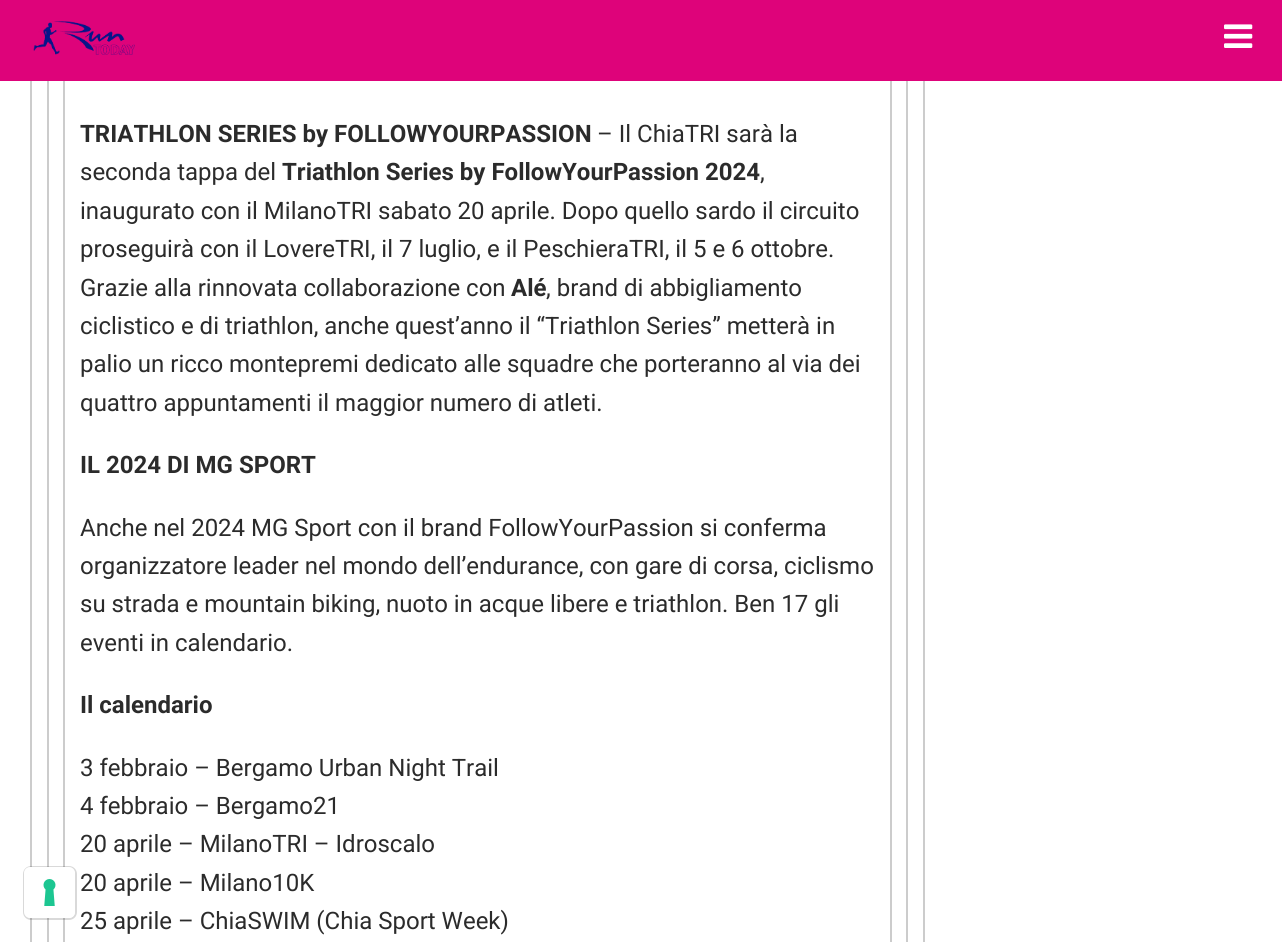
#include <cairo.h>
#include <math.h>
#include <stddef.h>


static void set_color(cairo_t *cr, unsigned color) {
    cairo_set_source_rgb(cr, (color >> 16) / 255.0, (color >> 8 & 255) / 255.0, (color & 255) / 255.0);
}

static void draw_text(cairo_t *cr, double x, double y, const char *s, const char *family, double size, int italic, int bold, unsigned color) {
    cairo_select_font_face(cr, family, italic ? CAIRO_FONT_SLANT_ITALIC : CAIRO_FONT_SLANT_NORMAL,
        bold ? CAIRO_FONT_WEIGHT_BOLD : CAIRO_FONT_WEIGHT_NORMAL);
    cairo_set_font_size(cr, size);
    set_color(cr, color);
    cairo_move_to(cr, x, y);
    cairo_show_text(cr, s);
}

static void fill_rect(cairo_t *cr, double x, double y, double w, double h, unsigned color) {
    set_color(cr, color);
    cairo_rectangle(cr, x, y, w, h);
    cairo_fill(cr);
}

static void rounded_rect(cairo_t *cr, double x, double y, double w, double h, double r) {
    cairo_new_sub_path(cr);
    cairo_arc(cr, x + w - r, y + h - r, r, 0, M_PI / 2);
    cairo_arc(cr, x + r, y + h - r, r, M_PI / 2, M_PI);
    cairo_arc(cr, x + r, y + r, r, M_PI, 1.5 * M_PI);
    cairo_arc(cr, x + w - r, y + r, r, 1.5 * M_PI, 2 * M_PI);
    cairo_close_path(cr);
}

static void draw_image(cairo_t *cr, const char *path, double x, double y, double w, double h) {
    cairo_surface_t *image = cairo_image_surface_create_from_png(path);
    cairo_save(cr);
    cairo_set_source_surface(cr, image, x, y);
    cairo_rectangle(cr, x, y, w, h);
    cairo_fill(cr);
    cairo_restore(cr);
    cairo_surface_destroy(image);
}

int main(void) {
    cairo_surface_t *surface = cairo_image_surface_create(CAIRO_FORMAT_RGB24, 1282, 942);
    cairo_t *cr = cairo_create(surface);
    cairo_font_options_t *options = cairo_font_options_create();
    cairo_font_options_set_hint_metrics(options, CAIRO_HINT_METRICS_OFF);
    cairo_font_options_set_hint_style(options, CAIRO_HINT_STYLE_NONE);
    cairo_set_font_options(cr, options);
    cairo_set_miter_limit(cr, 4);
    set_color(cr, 0xFFFFFF);
    cairo_paint(cr);
    fill_rect(cr, 30, 81, 2, 861, 0xCCCCCC);
    fill_rect(cr, 47, 81, 2, 861, 0xCCCCCC);
    fill_rect(cr, 63, 81, 2, 861, 0xCCCCCC);
    rounded_rect(cr, 24, 867, 52, 52, 7);
    cairo_set_source_rgba(cr, 0, 0, 0, 0.15);
    cairo_stroke(cr);
    set_color(cr, 0xFFFFFF);
    rounded_rect(cr, 24, 867, 51, 51, 6);
    cairo_fill(cr);
    draw_image(cr, "assets/img1.png", 43, 879, 13, 27);
    fill_rect(cr, 0, 0, 1282, 81, 0xDE037A);
    draw_image(cr, "assets/img2.png", 33, 21, 102, 34);
    draw_image(cr, "assets/img3.png", 1224, 24, 29, 24);
    fill_rect(cr, 923, 81, 2, 861, 0xCCCCCC);
    fill_rect(cr, 906, 81, 2, 861, 0xCCCCCC);
    fill_rect(cr, 890, 81, 2, 861, 0xCCCCCC);
    draw_text(cr, 80, 142, "TRIATHLON SERIES by FOLLOWYOURPASSION", "Roboto", 24, 0, 1, 0x2B2B2B);
    draw_text(cr, 597, 142, "– Il ChiaTRI sarà la", "Roboto", 24, 0, 0, 0x2B2B2B);
    draw_text(cr, 80, 180, "seconda tappa del", "Roboto", 24, 0, 0, 0x2B2B2B);
    draw_text(cr, 282, 180, "Triathlon Series by FollowYourPassion 2024", "Roboto", 24, 0, 1, 0x2B2B2B);
    draw_text(cr, 760, 180, ",", "Roboto", 24, 0, 0, 0x2B2B2B);
    draw_text(cr, 80, 219, "inaugurato con il MilanoTRI sabato 20 aprile. Dopo quello sardo il circuito", "Roboto", 24, 0, 0, 0x2B2B2B);
    draw_text(cr, 80, 257, "proseguirà con il LovereTRI, il 7 luglio, e il PeschieraTRI, il 5 e 6 ottobre.", "Roboto", 24, 0, 0, 0x2B2B2B);
    draw_text(cr, 80, 296, "Grazie alla rinnovata collaborazione con", "Roboto", 24, 0, 0, 0x2B2B2B);
    draw_text(cr, 511, 296, "Alé", "Roboto", 24, 0, 1, 0x2B2B2B);
    draw_text(cr, 546, 296, ", brand di abbigliamento", "Roboto", 24, 0, 0, 0x2B2B2B);
    draw_text(cr, 80, 334, "ciclistico e di triathlon, anche quest’anno il “Triathlon Series” metterà in", "Roboto", 24, 0, 0, 0x2B2B2B);
    draw_text(cr, 80, 372, "palio un ricco montepremi dedicato alle squadre che porteranno al via dei", "Roboto", 24, 0, 0, 0x2B2B2B);
    draw_text(cr, 80, 411, "quattro appuntamenti il maggior numero di atleti.", "Roboto", 24, 0, 0, 0x2B2B2B);
    draw_text(cr, 80, 473, "IL 2024 DI MG SPORT", "Roboto", 24, 0, 1, 0x2B2B2B);
    draw_text(cr, 80, 536, "Anche nel 2024 MG Sport con il brand FollowYourPassion si conferma", "Roboto", 24, 0, 0, 0x2B2B2B);
    draw_text(cr, 80, 574, "organizzatore leader nel mondo dell’endurance, con gare di corsa, ciclismo", "Roboto", 24, 0, 0, 0x2B2B2B);
    draw_text(cr, 80, 612, "su strada e mountain biking, nuoto in acque libere e triathlon. Ben 17 gli", "Roboto", 24, 0, 0, 0x2B2B2B);
    draw_text(cr, 80, 651, "eventi in calendario.", "Roboto", 24, 0, 0, 0x2B2B2B);
    draw_text(cr, 80, 713, "Il calendario", "Roboto", 24, 0, 1, 0x2B2B2B);
    draw_text(cr, 80, 776, "3 febbraio – Bergamo Urban Night Trail", "Roboto", 24, 0, 0, 0x2B2B2B);
    draw_text(cr, 80, 814, "4 febbraio – Bergamo21", "Roboto", 24, 0, 0, 0x2B2B2B);
    draw_text(cr, 80, 852, "20 aprile – MilanoTRI – Idroscalo", "Roboto", 24, 0, 0, 0x2B2B2B);
    draw_text(cr, 80, 891, "20 aprile – Milano10K", "Roboto", 24, 0, 0, 0x2B2B2B);
    draw_text(cr, 80, 929, "25 aprile – ChiaSWIM (Chia Sport Week)", "Roboto", 24, 0, 0, 0x2B2B2B);
    cairo_surface_write_to_png(surface, "output.png");
    cairo_font_options_destroy(options);
    cairo_destroy(cr);
    cairo_surface_destroy(surface);
    return 0;
}
